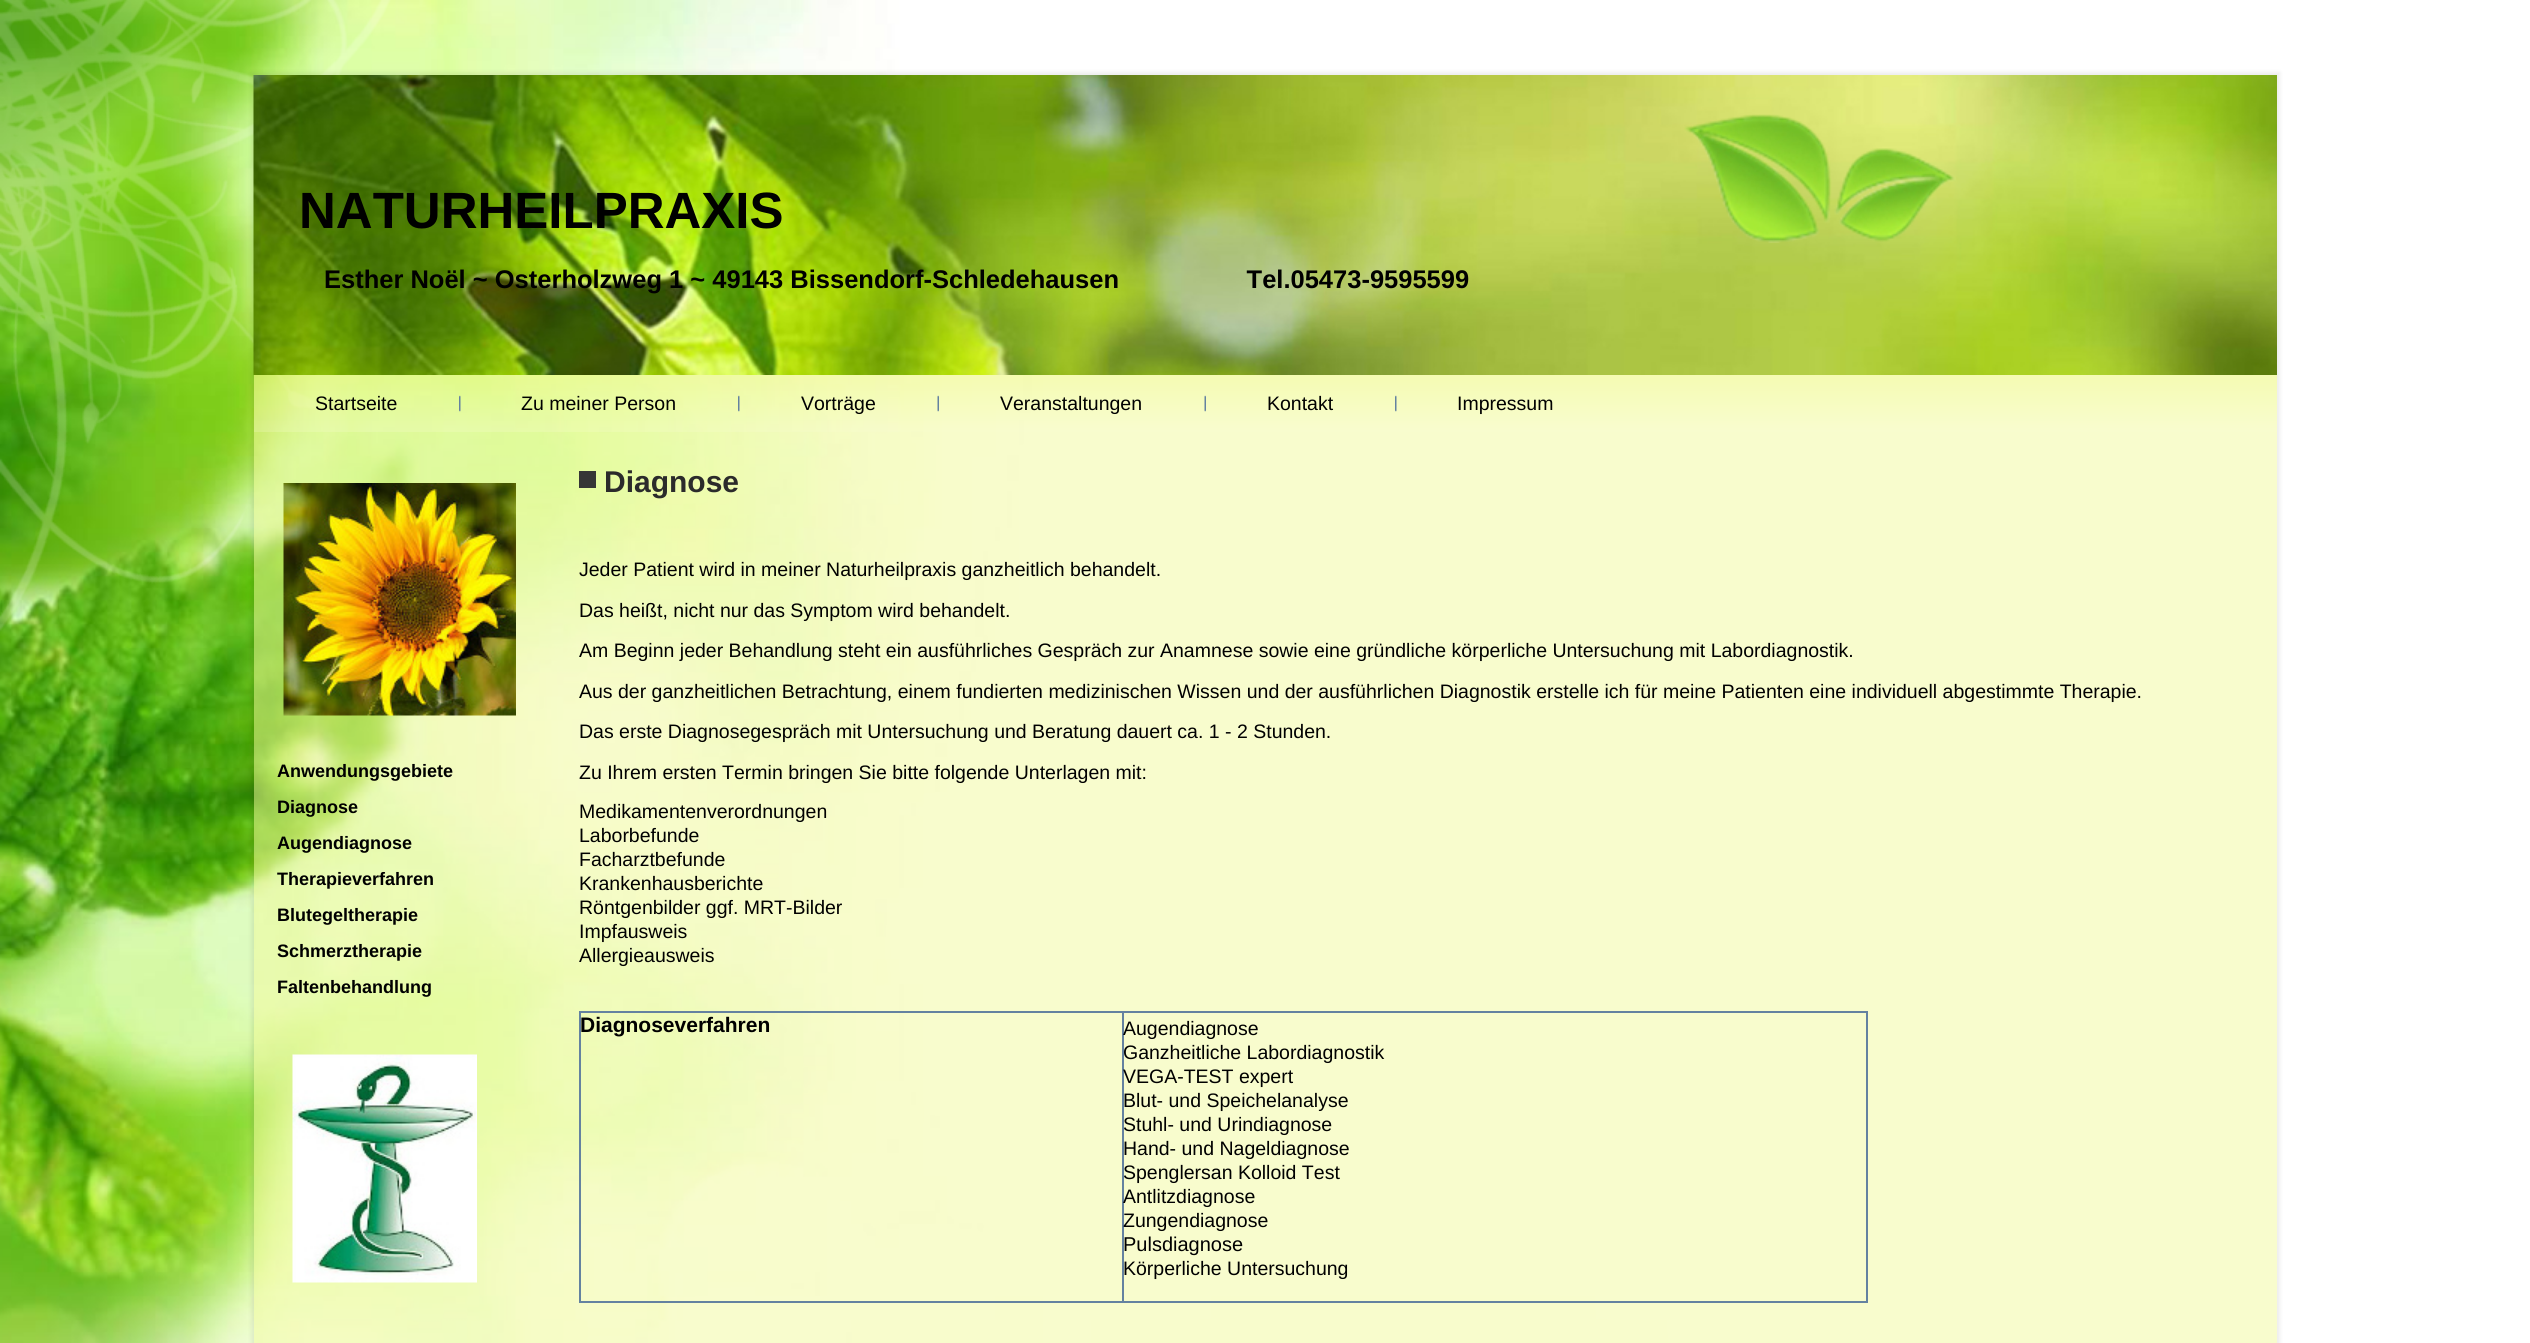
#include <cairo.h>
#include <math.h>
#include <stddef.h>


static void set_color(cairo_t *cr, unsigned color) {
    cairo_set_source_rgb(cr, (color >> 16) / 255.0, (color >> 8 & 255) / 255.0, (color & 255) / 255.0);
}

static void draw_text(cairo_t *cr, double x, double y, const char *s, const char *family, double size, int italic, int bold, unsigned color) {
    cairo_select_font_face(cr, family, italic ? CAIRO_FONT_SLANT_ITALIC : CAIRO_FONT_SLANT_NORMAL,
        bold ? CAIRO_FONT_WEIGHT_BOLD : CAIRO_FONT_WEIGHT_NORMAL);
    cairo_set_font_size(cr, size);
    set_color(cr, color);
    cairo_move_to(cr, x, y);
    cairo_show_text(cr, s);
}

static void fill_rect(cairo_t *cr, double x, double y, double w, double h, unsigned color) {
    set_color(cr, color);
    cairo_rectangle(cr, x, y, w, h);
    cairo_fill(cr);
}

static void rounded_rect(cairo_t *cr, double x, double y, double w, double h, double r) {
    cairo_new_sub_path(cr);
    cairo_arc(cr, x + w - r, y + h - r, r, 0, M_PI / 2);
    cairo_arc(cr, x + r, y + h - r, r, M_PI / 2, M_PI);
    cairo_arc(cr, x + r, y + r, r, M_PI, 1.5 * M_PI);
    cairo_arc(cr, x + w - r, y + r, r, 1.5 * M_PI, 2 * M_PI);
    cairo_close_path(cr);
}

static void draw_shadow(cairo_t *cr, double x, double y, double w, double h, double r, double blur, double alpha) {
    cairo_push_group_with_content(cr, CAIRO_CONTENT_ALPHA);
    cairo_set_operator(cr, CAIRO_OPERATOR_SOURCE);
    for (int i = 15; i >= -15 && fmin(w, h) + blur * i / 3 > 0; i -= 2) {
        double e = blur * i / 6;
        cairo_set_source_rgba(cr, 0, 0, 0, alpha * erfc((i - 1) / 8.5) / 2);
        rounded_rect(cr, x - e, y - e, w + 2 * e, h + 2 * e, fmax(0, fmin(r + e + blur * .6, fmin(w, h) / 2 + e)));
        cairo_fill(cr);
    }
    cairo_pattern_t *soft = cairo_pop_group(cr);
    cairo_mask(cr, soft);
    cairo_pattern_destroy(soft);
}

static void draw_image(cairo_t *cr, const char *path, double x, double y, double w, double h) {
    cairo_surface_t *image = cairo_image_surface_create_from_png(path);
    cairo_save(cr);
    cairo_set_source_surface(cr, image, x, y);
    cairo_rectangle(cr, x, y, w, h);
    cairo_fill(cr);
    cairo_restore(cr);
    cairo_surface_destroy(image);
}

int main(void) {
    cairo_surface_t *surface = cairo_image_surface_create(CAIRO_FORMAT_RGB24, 2530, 1343);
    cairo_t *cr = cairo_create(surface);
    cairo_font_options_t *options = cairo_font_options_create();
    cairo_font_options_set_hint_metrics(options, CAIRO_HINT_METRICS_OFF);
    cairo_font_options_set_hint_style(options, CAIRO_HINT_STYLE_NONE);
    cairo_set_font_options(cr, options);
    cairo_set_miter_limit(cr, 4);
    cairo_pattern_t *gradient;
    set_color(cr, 0xFFFFFF);
    cairo_paint(cr);
    draw_image(cr, "assets/img1.png", 0, 0, 2530, 1343);
    cairo_save(cr);
    cairo_set_fill_rule(cr, CAIRO_FILL_RULE_EVEN_ODD);
    cairo_new_path(cr);
    cairo_move_to(cr, 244, 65);
    cairo_line_to(cr, 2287, 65);
    cairo_line_to(cr, 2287, 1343);
    cairo_line_to(cr, 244, 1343);
    cairo_close_path(cr);
    cairo_move_to(cr, 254, 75);
    cairo_line_to(cr, 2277, 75);
    cairo_line_to(cr, 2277, 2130);
    cairo_line_to(cr, 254, 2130);
    cairo_close_path(cr);
    cairo_clip(cr);
    set_color(cr, 0x000000);
    draw_shadow(cr, 251, 72, 2029, 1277, 0, 2, 0.07);
    cairo_restore(cr);
    cairo_set_source_rgba(cr, 0.949, 0.984, 0.616, 0.5);
    cairo_rectangle(cr, 254, 375, 2023, 968);
    cairo_fill(cr);
    draw_image(cr, "assets/img2.png", 253, 75, 2024, 300);
    draw_text(cr, 299, 228, "NATURHEILPRAXIS", "Liberation Sans", 51, 0, 1, 0x000000);
    draw_image(cr, "assets/img3.png", 1684, 114, 272, 129);
    draw_text(cr, 324, 288, "Esther Noël ~ Osterholzweg 1 ~ 49143 Bissendorf-Schledehausen                  Tel.05473-9595599", "Liberation Sans", 25.5, 0, 1, 0x000000);
    gradient = cairo_pattern_create_linear(1265, 375, 1265, 432);
    cairo_pattern_add_color_stop_rgba(gradient, 0, 0.918, 0.976, 0.384, 0.25);
    cairo_pattern_add_color_stop_rgba(gradient, 1, 0.976, 0.992, 0.827, 0.25);
    cairo_set_source(cr, gradient);
    cairo_pattern_destroy(gradient);
    cairo_rectangle(cr, 254, 375, 2023, 57);
    cairo_fill(cr);
    draw_text(cr, 315, 410, "Startseite", "Liberation Sans", 19.5, 0, 0, 0x000000);
    draw_image(cr, "assets/img4.png", 459, 395, 2, 17);
    draw_text(cr, 521, 410, "Zu meiner Person", "Liberation Sans", 19.5, 0, 0, 0x000000);
    draw_image(cr, "assets/img5.png", 738, 395, 2, 17);
    draw_text(cr, 801, 410, "Vorträge", "Liberation Sans", 19.5, 0, 0, 0x000000);
    draw_image(cr, "assets/img6.png", 937, 395, 2, 17);
    draw_text(cr, 1000, 410, "Veranstaltungen", "Liberation Sans", 19.5, 0, 0, 0x000000);
    draw_image(cr, "assets/img7.png", 1204, 395, 2, 17);
    draw_text(cr, 1267, 410, "Kontakt", "Liberation Sans", 19.5, 0, 0, 0x000000);
    draw_image(cr, "assets/img8.png", 1395, 395, 2, 17);
    draw_text(cr, 1457, 410, "Impressum", "Liberation Sans", 19.5, 0, 0, 0x000000);
    draw_image(cr, "assets/img9.png", 283, 483, 233, 233);
    draw_text(cr, 277, 777, "Anwendungsgebiete", "Liberation Sans", 18, 0, 1, 0x000000);
    draw_text(cr, 277, 813, "Diagnose", "Liberation Sans", 18, 0, 1, 0x000000);
    draw_text(cr, 277, 849, "Augendiagnose", "Liberation Sans", 18, 0, 1, 0x000000);
    draw_text(cr, 277, 885, "Therapieverfahren", "Liberation Sans", 18, 0, 1, 0x000000);
    draw_text(cr, 277, 921, "Blutegeltherapie", "Liberation Sans", 18, 0, 1, 0x000000);
    draw_text(cr, 277, 957, "Schmerztherapie", "Liberation Sans", 18, 0, 1, 0x000000);
    draw_text(cr, 277, 993, "Faltenbehandlung", "Liberation Sans", 18, 0, 1, 0x000000);
    draw_image(cr, "assets/img10.png", 292, 1054, 185, 229);
    fill_rect(cr, 579, 471, 17, 17, 0x363636);
    draw_text(cr, 604, 492, "Diagnose", "Liberation Sans", 30, 0, 1, 0x2B2B2B);
    draw_text(cr, 579, 576, "Jeder Patient wird in meiner Naturheilpraxis ganzheitlich behandelt.", "Liberation Sans", 19.5, 0, 0, 0x000000);
    draw_text(cr, 579, 617, "Das heißt, nicht nur das Symptom wird behandelt.", "Liberation Sans", 19.5, 0, 0, 0x000000);
    draw_text(cr, 579, 657, "Am Beginn jeder Behandlung steht ein ausführliches Gespräch zur Anamnese sowie eine gründliche körperliche Untersuchung mit Labordiagnostik.", "Liberation Sans", 19.5, 0, 0, 0x000000);
    draw_text(cr, 579, 698, "Aus der ganzheitlichen Betrachtung, einem fundierten medizinischen Wissen und der ausführlichen Diagnostik erstelle ich für meine Patienten eine individuell abgestimmte Therapie.", "Liberation Sans", 19.5, 0, 0, 0x000000);
    draw_text(cr, 579, 738, "Das erste Diagnosegespräch mit Untersuchung und Beratung dauert ca. 1 - 2 Stunden.", "Liberation Sans", 19.5, 0, 0, 0x000000);
    draw_text(cr, 579, 779, "Zu Ihrem ersten Termin bringen Sie bitte folgende Unterlagen mit:", "Liberation Sans", 19.5, 0, 0, 0x000000);
    draw_text(cr, 579, 818, "Medikamentenverordnungen", "Liberation Sans", 19.5, 0, 0, 0x000000);
    draw_text(cr, 579, 842, "Laborbefunde", "Liberation Sans", 19.5, 0, 0, 0x000000);
    draw_text(cr, 579, 866, "Facharztbefunde", "Liberation Sans", 19.5, 0, 0, 0x000000);
    draw_text(cr, 579, 890, "Krankenhausberichte", "Liberation Sans", 19.5, 0, 0, 0x000000);
    draw_text(cr, 579, 914, "Röntgenbilder ggf. MRT-Bilder", "Liberation Sans", 19.5, 0, 0, 0x000000);
    draw_text(cr, 579, 938, "Impfausweis", "Liberation Sans", 19.5, 0, 0, 0x000000);
    draw_text(cr, 579, 962, "Allergieausweis", "Liberation Sans", 19.5, 0, 0, 0x000000);
    fill_rect(cr, 1122, 1011, 746, 2, 0x6482A0);
    fill_rect(cr, 1866, 1011, 2, 291, 0x6482A0);
    fill_rect(cr, 1122, 1301, 746, 2, 0x6482A0);
    fill_rect(cr, 1122, 1011, 2, 291, 0x6482A0);
    fill_rect(cr, 579, 1011, 545, 2, 0x6482A0);
    fill_rect(cr, 579, 1301, 545, 2, 0x6482A0);
    fill_rect(cr, 579, 1011, 2, 291, 0x6482A0);
    draw_text(cr, 580, 1032, "Diagnoseverfahren", "Liberation Sans", 21, 0, 1, 0x000000);
    draw_text(cr, 1123, 1035, "Augendiagnose", "Liberation Sans", 19.5, 0, 0, 0x000000);
    draw_text(cr, 1123, 1059, "Ganzheitliche Labordiagnostik", "Liberation Sans", 19.5, 0, 0, 0x000000);
    draw_text(cr, 1123, 1083, "VEGA-TEST expert", "Liberation Sans", 19.5, 0, 0, 0x000000);
    draw_text(cr, 1123, 1107, "Blut- und Speichelanalyse", "Liberation Sans", 19.5, 0, 0, 0x000000);
    draw_text(cr, 1123, 1131, "Stuhl- und Urindiagnose", "Liberation Sans", 19.5, 0, 0, 0x000000);
    draw_text(cr, 1123, 1155, "Hand- und Nageldiagnose", "Liberation Sans", 19.5, 0, 0, 0x000000);
    draw_text(cr, 1123, 1179, "Spenglersan Kolloid Test", "Liberation Sans", 19.5, 0, 0, 0x000000);
    draw_text(cr, 1123, 1203, "Antlitzdiagnose", "Liberation Sans", 19.5, 0, 0, 0x000000);
    draw_text(cr, 1123, 1227, "Zungendiagnose", "Liberation Sans", 19.5, 0, 0, 0x000000);
    draw_text(cr, 1123, 1251, "Pulsdiagnose", "Liberation Sans", 20, 0, 0, 0x000000);
    draw_text(cr, 1123, 1275, "Körperliche Untersuchung", "Liberation Sans", 19.5, 0, 0, 0x000000);
    cairo_surface_write_to_png(surface, "output.png");
    cairo_font_options_destroy(options);
    cairo_destroy(cr);
    cairo_surface_destroy(surface);
    return 0;
}
